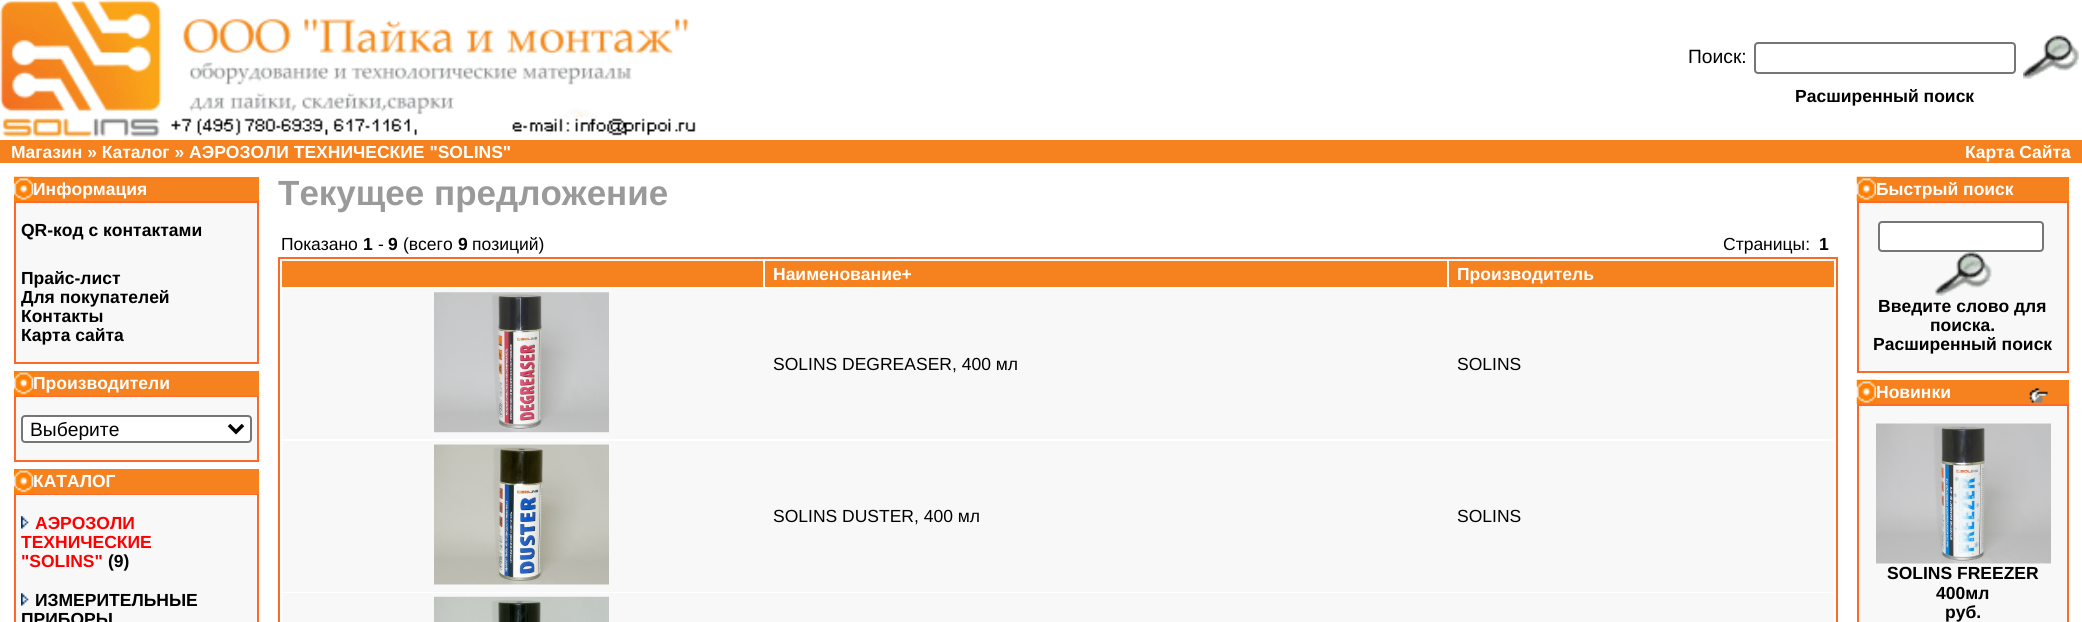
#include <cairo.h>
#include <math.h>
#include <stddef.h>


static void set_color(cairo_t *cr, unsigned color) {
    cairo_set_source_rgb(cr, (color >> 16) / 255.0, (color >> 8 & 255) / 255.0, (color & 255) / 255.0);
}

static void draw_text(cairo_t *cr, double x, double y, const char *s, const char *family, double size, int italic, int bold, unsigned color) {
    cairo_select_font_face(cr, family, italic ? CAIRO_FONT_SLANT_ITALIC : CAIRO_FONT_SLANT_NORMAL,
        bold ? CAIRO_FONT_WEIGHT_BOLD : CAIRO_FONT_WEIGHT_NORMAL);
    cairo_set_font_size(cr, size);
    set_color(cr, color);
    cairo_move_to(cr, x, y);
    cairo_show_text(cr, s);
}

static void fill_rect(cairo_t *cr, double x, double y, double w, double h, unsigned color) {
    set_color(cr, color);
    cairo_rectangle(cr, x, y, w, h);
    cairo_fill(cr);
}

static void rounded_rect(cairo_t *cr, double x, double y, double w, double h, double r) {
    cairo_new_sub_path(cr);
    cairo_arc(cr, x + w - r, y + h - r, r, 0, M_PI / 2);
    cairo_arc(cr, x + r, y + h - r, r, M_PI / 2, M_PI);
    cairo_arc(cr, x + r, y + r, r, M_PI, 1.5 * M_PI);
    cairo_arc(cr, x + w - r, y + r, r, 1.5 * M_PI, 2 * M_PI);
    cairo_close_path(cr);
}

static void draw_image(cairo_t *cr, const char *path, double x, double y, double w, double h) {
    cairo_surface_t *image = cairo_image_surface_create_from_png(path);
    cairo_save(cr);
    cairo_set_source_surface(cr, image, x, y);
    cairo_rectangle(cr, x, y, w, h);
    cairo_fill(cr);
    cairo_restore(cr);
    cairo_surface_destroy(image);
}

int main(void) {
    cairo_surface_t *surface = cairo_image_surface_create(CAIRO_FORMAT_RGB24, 2082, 622);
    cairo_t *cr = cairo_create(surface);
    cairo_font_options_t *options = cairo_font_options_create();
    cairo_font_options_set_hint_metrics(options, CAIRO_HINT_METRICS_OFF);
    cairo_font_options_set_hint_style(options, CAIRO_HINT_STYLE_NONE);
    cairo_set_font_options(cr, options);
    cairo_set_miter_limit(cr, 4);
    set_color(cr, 0xFFFFFF);
    cairo_paint(cr);
    draw_image(cr, "assets/img1.png", 0, 0, 696, 137);
    draw_text(cr, 1688, 63, "Поиск:", "Liberation Sans", 19.25, 0, 0, 0x000000);
    rounded_rect(cr, 1755, 43, 260, 30, 3);
    set_color(cr, 0x767676);
    cairo_stroke(cr);
    draw_image(cr, "assets/img2.png", 2023, 35, 56, 44);
    draw_text(cr, 1795, 102, "Расширенный поиск", "Liberation Sans", 17.5, 0, 1, 0x000000);
    fill_rect(cr, 0, 140, 2082, 23, 0xF5821E);
    draw_text(cr, 11, 158, "Магазин » Каталог » АЭРОЗОЛИ ТЕХНИЧЕСКИЕ \"SOLINS\"", "Liberation Sans", 17.5, 0, 1, 0xFFFFFF);
    draw_text(cr, 1965, 158, "Карта Сайта", "Liberation Sans", 17.5, 0, 1, 0xFFFFFF);
    fill_rect(cr, 33, 177, 226, 24, 0xF5821E);
    fill_rect(cr, 14, 201, 245, 163, 0xFF6928);
    draw_image(cr, "assets/img3.png", 14, 176, 20, 26);
    draw_text(cr, 33, 195, "Информация", "Liberation Sans", 17.5, 0, 1, 0xFFFFFF);
    fill_rect(cr, 16, 203, 241, 159, 0xF8F8F9);
    draw_text(cr, 21, 236, "QR-код с контактами", "Liberation Sans", 17.5, 0, 1, 0x000000);
    draw_text(cr, 21, 284, "Прайс-лист", "Liberation Sans", 17.5, 0, 1, 0x000000);
    draw_text(cr, 21, 303, "Для покупателей", "Liberation Sans", 17.5, 0, 1, 0x000000);
    draw_text(cr, 21, 322, "Контакты", "Liberation Sans", 17.5, 0, 1, 0x000000);
    draw_text(cr, 21, 341, "Карта сайта", "Liberation Sans", 17.5, 0, 1, 0x000000);
    fill_rect(cr, 14, 395, 19, 1, 0xF5821E);
    fill_rect(cr, 33, 371, 226, 25, 0xF5821E);
    draw_image(cr, "assets/img4.png", 14, 371, 20, 25);
    draw_text(cr, 33, 389, "Производители", "Liberation Sans", 17.5, 0, 1, 0xFFFFFF);
    fill_rect(cr, 14, 396, 245, 66, 0xFF6928);
    fill_rect(cr, 16, 397, 241, 63, 0xF8F8F9);
    set_color(cr, 0xFFFFFF);
    rounded_rect(cr, 22, 416, 229, 26, 3);
    cairo_fill_preserve(cr);
    set_color(cr, 0x767676);
    cairo_stroke(cr);
    cairo_new_path(cr);
    cairo_move_to(cr, 229, 425);
    cairo_line_to(cr, 236, 432);
    cairo_line_to(cr, 243, 425);
    set_color(cr, 0x000000);
    cairo_set_line_width(cr, 3.5);
    cairo_stroke(cr);
    draw_text(cr, 30, 436, "Выберите", "Liberation Sans", 19.25, 0, 0, 0x000000);
    fill_rect(cr, 14, 493, 19, 1, 0xF5821E);
    fill_rect(cr, 33, 469, 226, 25, 0xF5821E);
    draw_image(cr, "assets/img4.png", 14, 469, 20, 25);
    draw_text(cr, 33, 487, "КАТАЛОГ", "Liberation Sans", 17.5, 0, 1, 0xFFFFFF);
    fill_rect(cr, 14, 494, 245, 128, 0xFF6928);
    fill_rect(cr, 16, 495, 241, 127, 0xF8F8F9);
    draw_image(cr, "assets/img5.png", 21, 516, 8, 13);
    draw_text(cr, 35, 529, "АЭРОЗОЛИ", "Liberation Sans", 17.5, 0, 1, 0xFF0000);
    draw_text(cr, 21, 548, "ТЕХНИЧЕСКИЕ", "Liberation Sans", 17.5, 0, 1, 0xFF0000);
    draw_text(cr, 21, 567, "\"SOLINS\"", "Liberation Sans", 17.5, 0, 1, 0xFF0000);
    draw_text(cr, 108, 567, "(9)", "Liberation Sans", 17.5, 0, 1, 0x000000);
    draw_image(cr, "assets/img5.png", 21, 593, 8, 13);
    draw_text(cr, 35, 606, "ИЗМЕРИТЕЛЬНЫЕ", "Liberation Sans", 17.5, 0, 1, 0x000000);
    draw_text(cr, 21, 625, "ПРИБОРЫ", "Liberation Sans", 17.5, 0, 1, 0x000000);
    draw_text(cr, 278, 205, "Текущее предложение", "Liberation Sans", 35, 0, 1, 0x9A9A9A);
    draw_text(cr, 281, 250, "Показано", "Liberation Sans", 17.5, 0, 0, 0x000000);
    draw_text(cr, 363, 250, "1", "Liberation Sans", 17.5, 0, 1, 0x000000);
    draw_text(cr, 378, 250, "-", "Liberation Sans", 17.5, 0, 0, 0x000000);
    draw_text(cr, 388, 250, "9", "Liberation Sans", 17.5, 0, 1, 0x000000);
    draw_text(cr, 403, 250, "(всего", "Liberation Sans", 17.5, 0, 0, 0x000000);
    draw_text(cr, 458, 250, "9", "Liberation Sans", 17.5, 0, 1, 0x000000);
    draw_text(cr, 472, 250, "позиций)", "Liberation Sans", 17.5, 0, 0, 0x000000);
    draw_text(cr, 1723, 250, "Страницы:", "Liberation Sans", 17.5, 0, 0, 0x000000);
    draw_text(cr, 1819, 250, "1", "Liberation Sans", 17.5, 0, 1, 0x000000);
    cairo_rectangle(cr, 279, 258, 1558, 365);
    set_color(cr, 0xFF6928);
    cairo_set_line_width(cr, 2);
    cairo_stroke(cr);
    fill_rect(cr, 282, 261, 481, 26, 0xF5821E);
    fill_rect(cr, 765, 261, 682, 26, 0xF5821E);
    draw_text(cr, 773, 280, "Наименование+", "Liberation Sans", 17.5, 0, 1, 0xFFFFFF);
    fill_rect(cr, 1449, 261, 385, 26, 0xF5821E);
    draw_text(cr, 1457, 280, "Производитель", "Liberation Sans", 17.5, 0, 1, 0xFFFFFF);
    fill_rect(cr, 282, 289, 1552, 150, 0xF8F8F9);
    draw_image(cr, "assets/img6.png", 434, 292, 175, 141);
    draw_text(cr, 773, 370, "SOLINS DEGREASER, 400 мл", "Liberation Sans", 17.5, 0, 0, 0x000000);
    draw_text(cr, 1457, 370, "SOLINS", "Liberation Sans", 17.5, 0, 0, 0x000000);
    fill_rect(cr, 282, 441, 1552, 151, 0xF8F8F9);
    draw_image(cr, "assets/img7.png", 434, 444, 175, 141);
    draw_text(cr, 773, 522, "SOLINS DUSTER, 400 мл", "Liberation Sans", 17.5, 0, 0, 0x000000);
    draw_text(cr, 1457, 522, "SOLINS", "Liberation Sans", 17.5, 0, 0, 0x000000);
    fill_rect(cr, 282, 593, 1552, 29, 0xF8F8F9);
    draw_image(cr, "assets/img8.png", 434, 596, 175, 26);
    fill_rect(cr, 1857, 201, 212, 172, 0xFF6928);
    draw_image(cr, "assets/img9.png", 1856, 176, 20, 26);
    fill_rect(cr, 1876, 177, 193, 24, 0xF5821E);
    draw_text(cr, 1876, 195, "Быстрый поиск", "Liberation Sans", 17.5, 0, 1, 0xFFFFFF);
    fill_rect(cr, 1859, 203, 208, 168, 0xF8F8F9);
    set_color(cr, 0xFFFFFF);
    rounded_rect(cr, 1879, 222, 164, 29, 3);
    cairo_fill_preserve(cr);
    set_color(cr, 0x767676);
    cairo_stroke(cr);
    draw_image(cr, "assets/img10.png", 1935, 252, 57, 44);
    draw_text(cr, 1878, 312, "Введите слово для", "Liberation Sans", 17.5, 0, 1, 0x000000);
    draw_text(cr, 1930, 331, "поиска.", "Liberation Sans", 17.5, 0, 1, 0x000000);
    draw_text(cr, 1873, 350, "Расширенный поиск", "Liberation Sans", 17.5, 0, 1, 0x000000);
    fill_rect(cr, 1857, 404, 212, 218, 0xFF6928);
    draw_image(cr, "assets/img9.png", 1856, 379, 20, 26);
    fill_rect(cr, 1876, 380, 193, 24, 0xF5821E);
    draw_text(cr, 1876, 398, "Новинки", "Liberation Sans", 17.5, 0, 1, 0xFFFFFF);
    draw_image(cr, "assets/img11.png", 2029, 388, 19, 15);
    fill_rect(cr, 1859, 406, 208, 216, 0xF8F8F9);
    draw_image(cr, "assets/img12.png", 1876, 423, 175, 141);
    draw_text(cr, 1887, 579, "SOLINS FREEZER", "Liberation Sans", 17.5, 0, 1, 0x000000);
    draw_text(cr, 1936, 599, "400мл", "Liberation Sans", 17.5, 0, 1, 0x000000);
    draw_text(cr, 1945, 618, "руб.", "Liberation Sans", 17.5, 0, 1, 0x000000);
    cairo_surface_write_to_png(surface, "output.png");
    cairo_font_options_destroy(options);
    cairo_destroy(cr);
    cairo_surface_destroy(surface);
    return 0;
}
